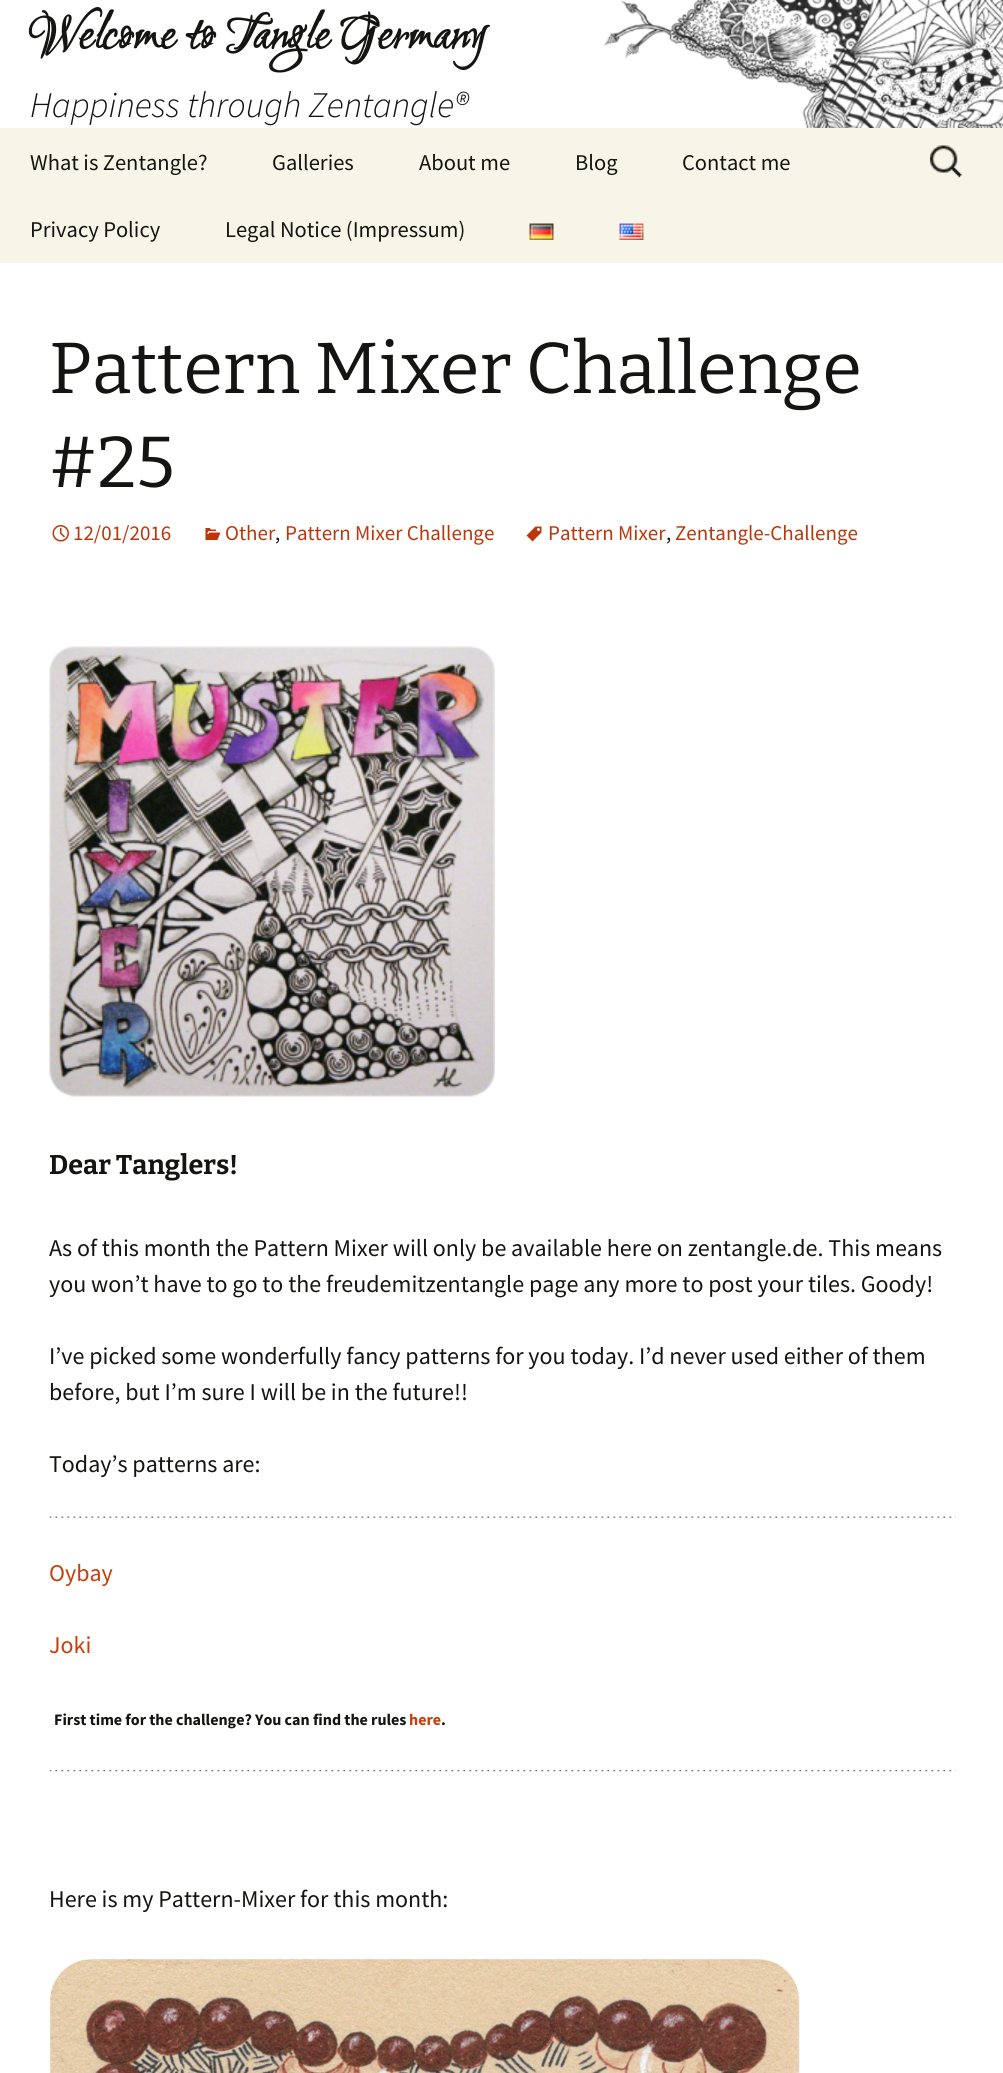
#include <cairo.h>
#include <math.h>
#include <stddef.h>


static void set_color(cairo_t *cr, unsigned color) {
    cairo_set_source_rgb(cr, (color >> 16) / 255.0, (color >> 8 & 255) / 255.0, (color & 255) / 255.0);
}

static void draw_text(cairo_t *cr, double x, double y, const char *s, const char *family, double size, int italic, int bold, unsigned color) {
    cairo_select_font_face(cr, family, italic ? CAIRO_FONT_SLANT_ITALIC : CAIRO_FONT_SLANT_NORMAL,
        bold ? CAIRO_FONT_WEIGHT_BOLD : CAIRO_FONT_WEIGHT_NORMAL);
    cairo_set_font_size(cr, size);
    set_color(cr, color);
    cairo_move_to(cr, x, y);
    cairo_show_text(cr, s);
}

static void fill_rect(cairo_t *cr, double x, double y, double w, double h, unsigned color) {
    set_color(cr, color);
    cairo_rectangle(cr, x, y, w, h);
    cairo_fill(cr);
}

static void draw_image(cairo_t *cr, const char *path, double x, double y, double w, double h) {
    cairo_surface_t *image = cairo_image_surface_create_from_png(path);
    cairo_save(cr);
    cairo_set_source_surface(cr, image, x, y);
    cairo_rectangle(cr, x, y, w, h);
    cairo_fill(cr);
    cairo_restore(cr);
    cairo_surface_destroy(image);
}

int main(void) {
    cairo_surface_t *surface = cairo_image_surface_create(CAIRO_FORMAT_RGB24, 1003, 2073);
    cairo_t *cr = cairo_create(surface);
    cairo_font_options_t *options = cairo_font_options_create();
    cairo_font_options_set_hint_metrics(options, CAIRO_HINT_METRICS_OFF);
    cairo_font_options_set_hint_style(options, CAIRO_HINT_STYLE_NONE);
    cairo_set_font_options(cr, options);
    cairo_set_miter_limit(cr, 4);
    set_color(cr, 0xFFFFFF);
    cairo_paint(cr);
    draw_image(cr, "assets/img1.png", 604, 0, 399, 128);
    draw_text(cr, 30, 48, "Welcome to Tangle Germany", "Ruthie", 54, 0, 1, 0x141412);
    draw_text(cr, 30, 117, "Happiness through Zentangle®", "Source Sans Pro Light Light", 36, 1, 0, 0x141412);
    fill_rect(cr, 0, 128, 1003, 135, 0xF7F5E7);
    draw_text(cr, 30, 170, "What is Zentangle?", "Source Sans Pro", 22.5, 0, 0, 0x141412);
    draw_text(cr, 272, 170, "Galleries", "Source Sans Pro", 22.5, 0, 0, 0x141412);
    draw_text(cr, 419, 170, "About me", "Source Sans Pro", 22.5, 0, 0, 0x141412);
    draw_text(cr, 575, 170, "Blog", "Source Sans Pro", 22.5, 0, 0, 0x141412);
    draw_text(cr, 682, 170, "Contact me", "Source Sans Pro", 22.5, 0, 0, 0x141412);
    draw_text(cr, 30, 237, "Privacy Policy", "Source Sans Pro", 22.5, 0, 0, 0x141412);
    draw_text(cr, 225, 237, "Legal Notice (Impressum)", "Source Sans Pro", 22.5, 0, 0, 0x141412);
    draw_image(cr, "assets/img2.png", 529, 223, 25, 17);
    draw_image(cr, "assets/img3.png", 619, 223, 25, 17);
    draw_image(cr, "assets/img4.png", 930, 145, 32, 33);
    draw_text(cr, 49, 393, "Pattern Mixer Challenge", "Bitter Thin", 72, 0, 0, 0x141412);
    draw_text(cr, 49, 487, "#25", "Bitter Thin", 72, 0, 0, 0x141412);
    draw_image(cr, "assets/img5.png", 52, 525, 17, 17);
    draw_text(cr, 73, 540, "12/01/2016", "Source Sans Pro", 21, 0, 0, 0xBC360A);
    draw_image(cr, "assets/img6.png", 205, 528, 16, 12);
    draw_text(cr, 225, 540, "Other", "Source Sans Pro", 21, 0, 0, 0xBC360A);
    draw_text(cr, 275, 540, ",", "Source Sans Pro", 21, 0, 0, 0x141412);
    draw_text(cr, 285, 540, "Pattern Mixer Challenge", "Source Sans Pro", 21, 0, 0, 0xBC360A);
    draw_image(cr, "assets/img7.png", 526, 526, 16, 16);
    draw_text(cr, 548, 540, "Pattern Mixer", "Source Sans Pro", 21, 0, 0, 0xBC360A);
    draw_text(cr, 666, 540, ",", "Source Sans Pro", 21, 0, 0, 0x141412);
    draw_text(cr, 675, 540, "Zentangle-Challenge", "Source Sans Pro", 21, 0, 0, 0xBC360A);
    draw_image(cr, "assets/img8.png", 49, 646, 446, 451);
    draw_text(cr, 49, 1174, "Dear Tanglers!", "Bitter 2 Thin", 27, 0, 0, 0x141412);
    draw_text(cr, 49, 1256, "As of this month the Pattern Mixer will only be available here on zentangle.de. This means", "Source Sans Pro", 24, 0, 0, 0x141412);
    draw_text(cr, 49, 1292, "you won’t have to go to the freudemitzentangle page any more to post your tiles. Goody!", "Source Sans Pro", 24, 0, 0, 0x141412);
    draw_text(cr, 49, 1364, "I’ve picked some wonderfully fancy patterns for you today. I’d never used either of them", "Source Sans Pro", 24, 0, 0, 0x141412);
    draw_text(cr, 49, 1400, "before, but I’m sure I will be in the future!!", "Source Sans Pro", 24, 0, 0, 0x141412);
    draw_text(cr, 49, 1472, "Today’s patterns are:", "Source Sans Pro", 24, 0, 0, 0x141412);
    draw_image(cr, "assets/img9.png", 49, 1516, 907, 2);
    draw_text(cr, 49, 1581, "Oybay", "Source Sans Pro", 24, 0, 0, 0xCA3C08);
    draw_text(cr, 49, 1653, "Joki", "Source Sans Pro", 24, 0, 0, 0xCA3C08);
    draw_text(cr, 54, 1725, "First time for the challenge? You can find the rules", "Source Sans Pro", 16, 0, 1, 0x141412);
    draw_text(cr, 409, 1725, "here", "Source Sans Pro", 16, 0, 1, 0xCA3C08);
    draw_text(cr, 441, 1725, ".", "Source Sans Pro", 16, 0, 1, 0x141412);
    draw_image(cr, "assets/img10.png", 49, 1770, 907, 2);
    draw_text(cr, 49, 1907, "Here is my Pattern-Mixer for this month:", "Source Sans Pro", 24, 0, 0, 0x141412);
    draw_image(cr, "assets/img11.png", 50, 1959, 750, 114);
    cairo_surface_write_to_png(surface, "output.png");
    cairo_font_options_destroy(options);
    cairo_destroy(cr);
    cairo_surface_destroy(surface);
    return 0;
}
